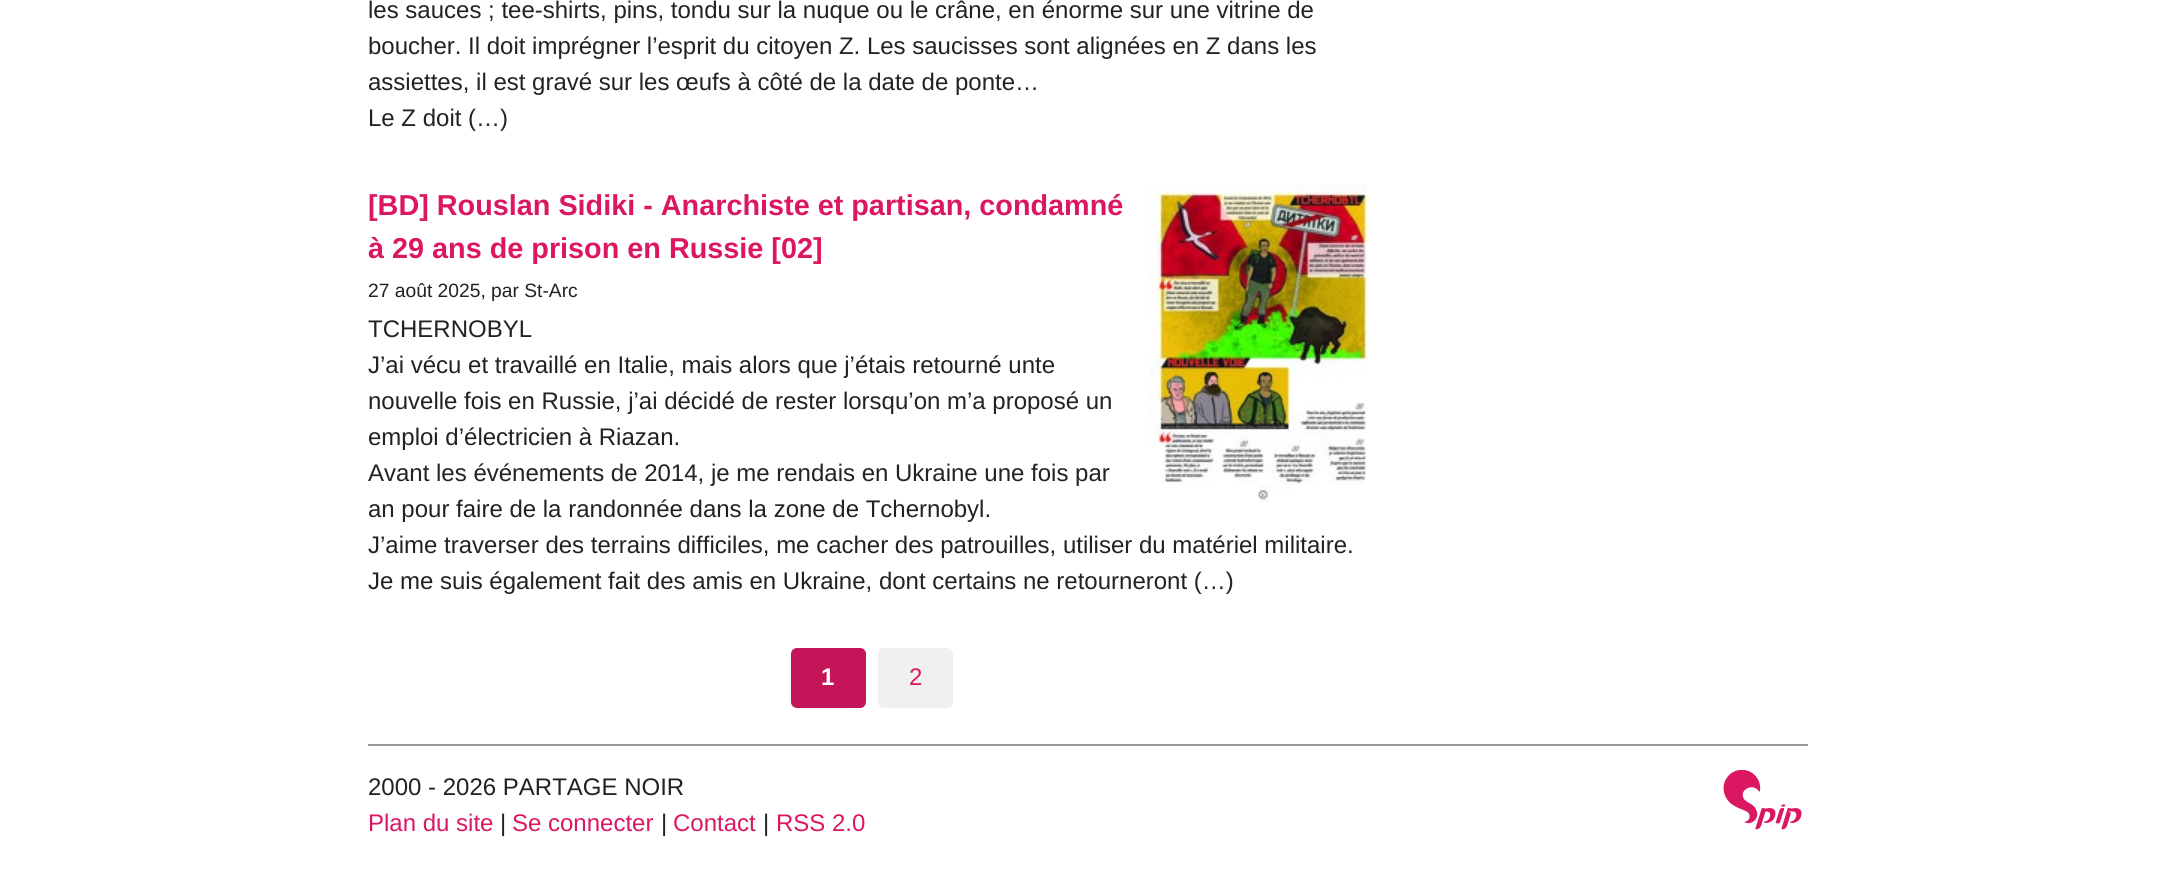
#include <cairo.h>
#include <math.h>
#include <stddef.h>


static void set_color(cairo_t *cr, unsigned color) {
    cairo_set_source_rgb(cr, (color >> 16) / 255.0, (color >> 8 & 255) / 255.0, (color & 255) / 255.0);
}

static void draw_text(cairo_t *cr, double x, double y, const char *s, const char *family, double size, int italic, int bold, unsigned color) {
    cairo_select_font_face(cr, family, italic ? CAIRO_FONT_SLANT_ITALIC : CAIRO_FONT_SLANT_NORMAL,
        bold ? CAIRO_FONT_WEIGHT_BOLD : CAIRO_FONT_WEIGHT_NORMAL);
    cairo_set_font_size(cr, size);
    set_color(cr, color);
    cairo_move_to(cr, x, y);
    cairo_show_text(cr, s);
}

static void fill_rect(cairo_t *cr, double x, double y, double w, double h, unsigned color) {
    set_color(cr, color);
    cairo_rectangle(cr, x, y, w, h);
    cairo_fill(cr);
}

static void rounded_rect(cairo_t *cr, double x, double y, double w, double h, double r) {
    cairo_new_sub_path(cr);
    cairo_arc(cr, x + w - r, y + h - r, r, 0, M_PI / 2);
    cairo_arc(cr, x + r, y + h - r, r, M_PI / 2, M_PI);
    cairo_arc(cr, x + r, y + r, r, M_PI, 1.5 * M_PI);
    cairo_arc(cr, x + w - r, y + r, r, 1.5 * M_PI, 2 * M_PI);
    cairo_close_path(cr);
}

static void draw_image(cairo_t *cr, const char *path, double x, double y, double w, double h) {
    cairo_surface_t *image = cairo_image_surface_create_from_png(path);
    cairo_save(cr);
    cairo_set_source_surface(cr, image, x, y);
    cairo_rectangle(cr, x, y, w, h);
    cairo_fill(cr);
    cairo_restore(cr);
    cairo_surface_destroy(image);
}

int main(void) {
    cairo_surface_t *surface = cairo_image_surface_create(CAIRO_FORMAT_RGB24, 2174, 884);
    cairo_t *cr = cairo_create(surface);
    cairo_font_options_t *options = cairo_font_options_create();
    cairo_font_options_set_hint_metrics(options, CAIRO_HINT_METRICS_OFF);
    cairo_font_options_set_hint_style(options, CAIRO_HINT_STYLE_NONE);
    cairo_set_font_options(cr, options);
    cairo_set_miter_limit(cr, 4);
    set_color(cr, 0xFFFFFF);
    cairo_paint(cr);
    draw_text(cr, 368, 18, "les sauces ; tee-shirts, pins, tondu sur la nuque ou le crâne, en énorme sur une vitrine de", "Liberation Sans", 24, 0, 0, 0x222222);
    draw_text(cr, 368, 54, "boucher. Il doit imprégner l’esprit du citoyen Z. Les saucisses sont alignées en Z dans les", "Liberation Sans", 24, 0, 0, 0x222222);
    draw_text(cr, 368, 90, "assiettes, il est gravé sur les œufs à côté de la date de ponte…", "Liberation Sans", 24, 0, 0, 0x222222);
    draw_text(cr, 368, 126, "Le Z doit (…)", "Liberation Sans", 24, 0, 0, 0x222222);
    draw_text(cr, 368, 215, "[BD] Rouslan Sidiki - Anarchiste et partisan, condamné", "Liberation Sans", 28.8, 0, 1, 0xDB1762);
    draw_image(cr, "assets/img1.png", 1150, 184, 219, 319);
    draw_text(cr, 368, 258, "à 29 ans de prison en Russie [02]", "Liberation Sans", 28.8, 0, 1, 0xDB1762);
    draw_text(cr, 368, 297, "27 août 2025, par St-Arc", "Liberation Sans", 19.25, 0, 0, 0x222222);
    draw_text(cr, 368, 337, "TCHERNOBYL", "Liberation Sans", 24, 0, 0, 0x222222);
    draw_text(cr, 368, 373, "J’ai vécu et travaillé en Italie, mais alors que j’étais retourné unte", "Liberation Sans", 24, 0, 0, 0x222222);
    draw_text(cr, 368, 409, "nouvelle fois en Russie, j’ai décidé de rester lorsqu’on m’a proposé un", "Liberation Sans", 24, 0, 0, 0x222222);
    draw_text(cr, 368, 445, "emploi d’électricien à Riazan.", "Liberation Sans", 24, 0, 0, 0x222222);
    draw_text(cr, 368, 481, "Avant les événements de 2014, je me rendais en Ukraine une fois par", "Liberation Sans", 24, 0, 0, 0x222222);
    draw_text(cr, 368, 517, "an pour faire de la randonnée dans la zone de Tchernobyl.", "Liberation Sans", 24, 0, 0, 0x222222);
    draw_text(cr, 368, 553, "J’aime traverser des terrains difficiles, me cacher des patrouilles, utiliser du matériel militaire.", "Liberation Sans", 24, 0, 0, 0x222222);
    draw_text(cr, 368, 589, "Je me suis également fait des amis en Ukraine, dont certains ne retourneront (…)", "Liberation Sans", 24, 0, 0, 0x222222);
    set_color(cr, 0xC41558);
    rounded_rect(cr, 791, 648, 75, 60, 6);
    cairo_fill(cr);
    draw_text(cr, 821, 685, "1", "Liberation Sans", 24, 0, 1, 0xFFFFFF);
    set_color(cr, 0xF0F0F0);
    rounded_rect(cr, 878, 648, 75, 60, 6);
    cairo_fill(cr);
    draw_text(cr, 909, 685, "2", "Liberation Sans", 24, 0, 0, 0xDB1762);
    fill_rect(cr, 368, 744, 1440, 2, 0x999999);
    draw_text(cr, 368, 795, "2000 - 2026 PARTAGE NOIR", "Liberation Sans", 24, 0, 0, 0x222222);
    draw_text(cr, 368, 831, "Plan du site", "Liberation Sans", 24, 0, 0, 0xDB1762);
    draw_text(cr, 500, 831, "|", "Liberation Sans", 24, 0, 0, 0x222222);
    draw_text(cr, 512, 831, "Se connecter", "Liberation Sans", 24, 0, 0, 0xDB1762);
    draw_text(cr, 661, 831, "|", "Liberation Sans", 24, 0, 0, 0x222222);
    draw_text(cr, 673, 831, "Contact", "Liberation Sans", 24, 0, 0, 0xDB1762);
    draw_text(cr, 763, 831, "|", "Liberation Sans", 24, 0, 0, 0x222222);
    draw_text(cr, 776, 831, "RSS 2.0", "Liberation Sans", 24, 0, 0, 0xDB1762);
    draw_image(cr, "assets/img2.png", 1723, 770, 79, 60);
    cairo_surface_write_to_png(surface, "output.png");
    cairo_font_options_destroy(options);
    cairo_destroy(cr);
    cairo_surface_destroy(surface);
    return 0;
}
